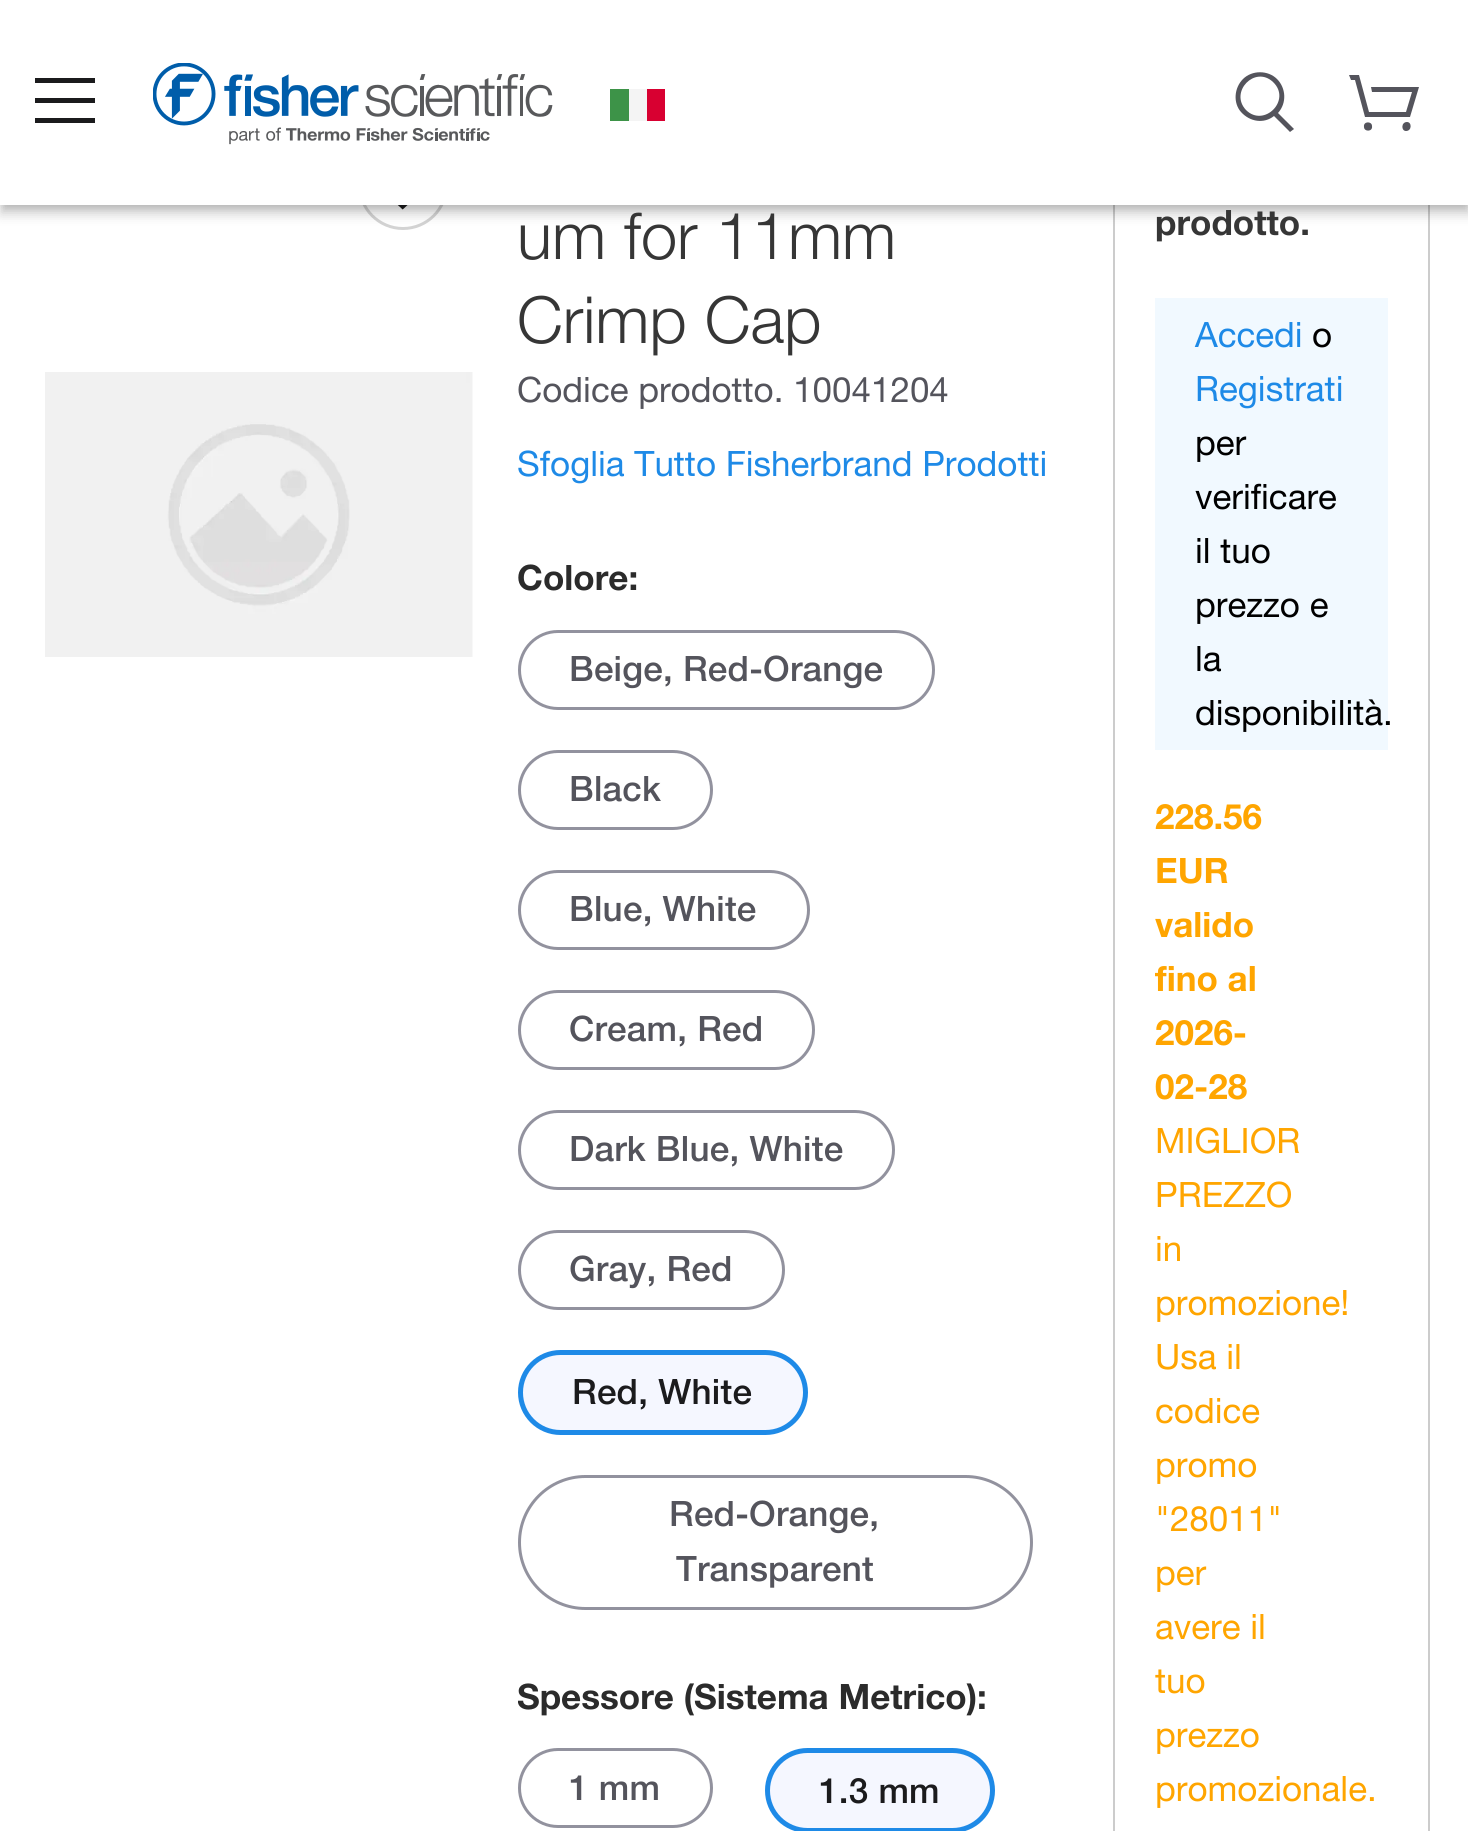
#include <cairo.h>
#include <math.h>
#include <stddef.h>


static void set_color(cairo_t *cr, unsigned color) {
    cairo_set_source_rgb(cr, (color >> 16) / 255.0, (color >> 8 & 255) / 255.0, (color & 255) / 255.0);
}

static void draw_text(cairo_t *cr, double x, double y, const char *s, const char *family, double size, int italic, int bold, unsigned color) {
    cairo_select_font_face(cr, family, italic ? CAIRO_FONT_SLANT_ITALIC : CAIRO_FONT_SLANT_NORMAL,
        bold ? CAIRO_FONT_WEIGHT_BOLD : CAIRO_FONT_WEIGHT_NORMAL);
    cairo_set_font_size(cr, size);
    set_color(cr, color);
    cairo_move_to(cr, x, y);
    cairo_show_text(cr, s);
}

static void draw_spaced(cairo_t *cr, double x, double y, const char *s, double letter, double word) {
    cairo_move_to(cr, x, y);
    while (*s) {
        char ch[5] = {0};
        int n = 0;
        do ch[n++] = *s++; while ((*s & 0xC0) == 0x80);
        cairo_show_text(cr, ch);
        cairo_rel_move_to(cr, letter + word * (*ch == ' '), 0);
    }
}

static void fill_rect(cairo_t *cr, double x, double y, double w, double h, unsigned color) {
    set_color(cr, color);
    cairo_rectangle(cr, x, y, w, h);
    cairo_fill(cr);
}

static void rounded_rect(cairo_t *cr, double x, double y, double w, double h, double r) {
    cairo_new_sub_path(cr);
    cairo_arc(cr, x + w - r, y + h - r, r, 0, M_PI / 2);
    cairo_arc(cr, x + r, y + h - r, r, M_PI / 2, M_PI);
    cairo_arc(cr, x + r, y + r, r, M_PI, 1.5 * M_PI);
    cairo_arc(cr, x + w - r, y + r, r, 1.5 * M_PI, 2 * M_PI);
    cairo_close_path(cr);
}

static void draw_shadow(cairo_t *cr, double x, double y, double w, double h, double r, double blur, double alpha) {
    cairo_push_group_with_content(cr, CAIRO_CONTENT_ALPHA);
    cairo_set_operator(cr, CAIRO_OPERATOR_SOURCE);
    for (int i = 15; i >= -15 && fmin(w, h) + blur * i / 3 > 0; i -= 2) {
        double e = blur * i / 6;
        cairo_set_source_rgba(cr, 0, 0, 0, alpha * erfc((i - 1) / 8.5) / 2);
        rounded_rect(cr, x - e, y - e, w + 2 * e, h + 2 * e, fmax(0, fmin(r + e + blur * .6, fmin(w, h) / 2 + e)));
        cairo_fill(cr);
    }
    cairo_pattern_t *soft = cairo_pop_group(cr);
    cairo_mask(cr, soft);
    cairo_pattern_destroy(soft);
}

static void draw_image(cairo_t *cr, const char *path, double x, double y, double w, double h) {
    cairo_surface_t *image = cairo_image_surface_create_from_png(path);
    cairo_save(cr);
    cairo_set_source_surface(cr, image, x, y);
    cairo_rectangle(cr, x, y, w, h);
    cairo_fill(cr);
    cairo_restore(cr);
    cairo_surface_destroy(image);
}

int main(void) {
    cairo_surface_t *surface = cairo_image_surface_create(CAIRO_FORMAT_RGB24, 1468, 1831);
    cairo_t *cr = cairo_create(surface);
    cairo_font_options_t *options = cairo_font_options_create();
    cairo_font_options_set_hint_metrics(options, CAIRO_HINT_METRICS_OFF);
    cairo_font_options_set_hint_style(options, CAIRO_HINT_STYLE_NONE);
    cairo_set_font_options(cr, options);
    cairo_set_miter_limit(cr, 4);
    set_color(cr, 0xFFFFFF);
    cairo_paint(cr);
    cairo_arc(cr, 403, 185, 43.5, 0, 2 * M_PI);
    set_color(cr, 0xD3D3D3);
    cairo_set_line_width(cr, 3);
    cairo_stroke(cr);
    draw_image(cr, "assets/img2.png", 397, 205, 11, 5);
    cairo_rectangle(cr, 1114.5, 111.5, 314, 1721);
    set_color(cr, 0xCCCCCC);
    cairo_stroke(cr);
    fill_rect(cr, 1115, 205, 313, 1626, 0xFFFFFF);
    set_color(cr, 0x000000);
    draw_shadow(cr, 0, 10, 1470, 205, 0, 6, 0.14);
    draw_shadow(cr, 3, 8, 1465, 200, 0, 5, 0.2);
    fill_rect(cr, 0, 0, 1468, 205, 0xFFFFFF);
    fill_rect(cr, 35, 98, 60, 5, 0x1B1B1D);
    fill_rect(cr, 35, 78, 60, 5, 0x1B1B1D);
    fill_rect(cr, 35, 118, 60, 5, 0x1B1B1D);
    draw_image(cr, "assets/img1.png", 153, 63, 400, 82);
    fill_rect(cr, 610, 89, 19, 32, 0x3D9348);
    fill_rect(cr, 629, 89, 18, 32, 0xF4F4F4);
    fill_rect(cr, 647, 89, 18, 32, 0xD80031);
    set_color(cr, 0x54545C);
    cairo_new_path(cr);
    cairo_move_to(cr, 1294, 129);
    cairo_line_to(cr, 1278, 113);
    cairo_curve_to(cr, 1287, 103, 1286, 88, 1277, 79);
    cairo_curve_to(cr, 1268, 70, 1252, 70, 1243, 79);
    cairo_curve_to(cr, 1234, 88, 1233, 103, 1241, 112);
    cairo_curve_to(cr, 1250, 122, 1264, 124, 1274, 116);
    cairo_line_to(cr, 1290, 132);
    cairo_close_path(cr);
    cairo_move_to(cr, 1246, 110);
    cairo_curve_to(cr, 1229, 92, 1255, 65, 1273, 82);
    cairo_curve_to(cr, 1292, 100, 1264, 128, 1246, 110);
    cairo_close_path(cr);
    cairo_fill(cr);
    cairo_new_path(cr);
    cairo_move_to(cr, 1372, 126);
    cairo_curve_to(cr, 1373, 132, 1364, 132, 1364, 127);
    cairo_curve_to(cr, 1363, 121, 1372, 121, 1372, 126);
    cairo_close_path(cr);
    cairo_move_to(cr, 1407, 122);
    cairo_curve_to(cr, 1401, 122, 1401, 131, 1406, 131);
    cairo_curve_to(cr, 1412, 131, 1412, 122, 1407, 122);
    cairo_close_path(cr);
    cairo_move_to(cr, 1410, 117);
    cairo_line_to(cr, 1419, 87);
    cairo_line_to(cr, 1371, 87);
    cairo_line_to(cr, 1372, 92);
    cairo_line_to(cr, 1412, 92);
    cairo_line_to(cr, 1406, 112);
    cairo_line_to(cr, 1369, 112);
    cairo_line_to(cr, 1359, 75);
    cairo_line_to(cr, 1349, 75);
    cairo_line_to(cr, 1351, 80);
    cairo_line_to(cr, 1355, 80);
    cairo_line_to(cr, 1365, 117);
    cairo_close_path(cr);
    cairo_fill(cr);
    draw_image(cr, "assets/img3.png", 45, 372, 428, 285);
    draw_text(cr, 517, 259, "um for 11mm", "Helvetica Neue Light", 65, 0, 0, 0x363636);
    draw_text(cr, 517, 343, "Crimp Cap", "Helvetica Neue Light", 65, 0, 0, 0x363636);
    draw_text(cr, 517, 402, "Codice prodotto. 10041204", "Helvetica Neue", 35, 0, 0, 0x54545C);
    draw_text(cr, 517, 476, "Sfoglia Tutto Fisherbrand Prodotti", "Helvetica Neue", 35, 0, 0, 0x1E8AE7);
    draw_text(cr, 517, 590, "Colore:", "Helvetica Neue", 35, 0, 1, 0x2B2B2B);
    rounded_rect(cr, 519.5, 631.5, 414, 77, 38.5);
    set_color(cr, 0x92929E);
    cairo_stroke(cr);
    cairo_select_font_face(cr, "Helvetica Neue Medium", CAIRO_FONT_SLANT_NORMAL, CAIRO_FONT_WEIGHT_NORMAL);
    set_color(cr, 0x54545C);
    draw_spaced(cr, 569, 681, "Beige, Red-Orange", 0.25, 0);
    rounded_rect(cr, 519.5, 751.5, 192, 77, 38.5);
    set_color(cr, 0x92929E);
    cairo_stroke(cr);
    set_color(cr, 0x54545C);
    draw_spaced(cr, 569, 801, "Black", 0.25, 0);
    rounded_rect(cr, 519.5, 871.5, 289, 77, 38.5);
    set_color(cr, 0x92929E);
    cairo_stroke(cr);
    set_color(cr, 0x54545C);
    draw_spaced(cr, 569, 921, "Blue, White", 0.25, 0);
    rounded_rect(cr, 519.5, 991.5, 294, 77, 38.5);
    set_color(cr, 0x92929E);
    cairo_stroke(cr);
    set_color(cr, 0x54545C);
    draw_spaced(cr, 569, 1041, "Cream, Red", 0.25, 0);
    rounded_rect(cr, 519.5, 1111.5, 374, 77, 38.5);
    set_color(cr, 0x92929E);
    cairo_stroke(cr);
    set_color(cr, 0x54545C);
    draw_spaced(cr, 569, 1161, "Dark Blue, White", 0.25, 0);
    rounded_rect(cr, 519.5, 1231.5, 264, 77, 38.5);
    set_color(cr, 0x92929E);
    cairo_stroke(cr);
    set_color(cr, 0x54545C);
    draw_spaced(cr, 569, 1281, "Gray, Red", 0.25, 0);
    set_color(cr, 0xF5F7FF);
    rounded_rect(cr, 520.5, 1352.5, 285, 80, 40);
    cairo_fill_preserve(cr);
    set_color(cr, 0x1E8AE7);
    cairo_set_line_width(cr, 5);
    cairo_stroke(cr);
    set_color(cr, 0x1B1B1D);
    draw_spaced(cr, 572, 1404, "Red, White", 0.25, 0);
    rounded_rect(cr, 519.5, 1476.5, 512, 132, 66);
    set_color(cr, 0x92929E);
    cairo_set_line_width(cr, 3);
    cairo_stroke(cr);
    set_color(cr, 0x54545C);
    draw_spaced(cr, 669, 1526, "Red-Orange,", 0.25, 0);
    draw_spaced(cr, 676, 1581, "Transparent", 0.25, 0);
    cairo_save(cr);
    cairo_rectangle(cr, 518, 1670, 555, 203);
    cairo_clip(cr);
    draw_text(cr, 517, 1709, "Spessore (Sistema Metrico):", "Helvetica Neue", 35, 0, 1, 0x2B2B2B);
    cairo_restore(cr);
    rounded_rect(cr, 519.5, 1749.5, 192, 77, 38.5);
    set_color(cr, 0x92929E);
    cairo_stroke(cr);
    set_color(cr, 0x54545C);
    draw_spaced(cr, 569, 1800, "1 mm", 0.25, 0);
    set_color(cr, 0xF5F7FF);
    rounded_rect(cr, 767.5, 1750.5, 225, 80, 40);
    cairo_fill_preserve(cr);
    set_color(cr, 0x1E8AE7);
    cairo_set_line_width(cr, 5);
    cairo_stroke(cr);
    set_color(cr, 0x1B1B1D);
    draw_spaced(cr, 819, 1803, "1.3 mm", 0.25, 0);
    draw_text(cr, 1155, 235, "prodotto.", "Helvetica Neue", 35, 0, 1, 0x363636);
    fill_rect(cr, 1155, 298, 233, 452, 0xF1F9FF);
    draw_text(cr, 1195, 347, "Accedi", "Helvetica Neue", 35, 0, 0, 0x1E8AE7);
    draw_text(cr, 1312, 347, "o", "Helvetica Neue", 35, 0, 0, 0x000000);
    draw_text(cr, 1195, 401, "Registrati", "Helvetica Neue", 35, 0, 0, 0x1E8AE7);
    draw_text(cr, 1195, 455, "per", "Helvetica Neue", 35, 0, 0, 0x000000);
    draw_text(cr, 1195, 509, "verificare", "Helvetica Neue", 35, 0, 0, 0x000000);
    draw_text(cr, 1195, 563, "il tuo", "Helvetica Neue", 35, 0, 0, 0x000000);
    draw_text(cr, 1195, 617, "prezzo e", "Helvetica Neue", 35, 0, 0, 0x000000);
    draw_text(cr, 1195, 671, "la", "Helvetica Neue", 35, 0, 0, 0x000000);
    draw_text(cr, 1195, 725, "disponibilità.", "Helvetica Neue", 35, 0, 0, 0x000000);
    draw_text(cr, 1155, 829, "228.56", "Helvetica Neue", 35, 0, 1, 0xFFA500);
    draw_text(cr, 1155, 883, "EUR", "Helvetica Neue", 35, 0, 1, 0xFFA500);
    draw_text(cr, 1155, 937, "valido", "Helvetica Neue", 35, 0, 1, 0xFFA500);
    draw_text(cr, 1155, 991, "fino al", "Helvetica Neue", 35, 0, 1, 0xFFA500);
    draw_text(cr, 1155, 1045, "2026-", "Helvetica Neue", 35, 0, 1, 0xFFA500);
    draw_text(cr, 1155, 1099, "02-28", "Helvetica Neue", 35, 0, 1, 0xFFA500);
    draw_text(cr, 1155, 1153, "MIGLIOR", "Helvetica Neue", 35, 0, 0, 0xFFA500);
    draw_text(cr, 1155, 1207, "PREZZO", "Helvetica Neue", 35, 0, 0, 0xFFA500);
    draw_text(cr, 1155, 1261, "in", "Helvetica Neue", 35, 0, 0, 0xFFA500);
    draw_text(cr, 1155, 1315, "promozione!", "Helvetica Neue", 35, 0, 0, 0xFFA500);
    draw_text(cr, 1155, 1369, "Usa il", "Helvetica Neue", 35, 0, 0, 0xFFA500);
    draw_text(cr, 1155, 1423, "codice", "Helvetica Neue", 35, 0, 0, 0xFFA500);
    draw_text(cr, 1155, 1477, "promo", "Helvetica Neue", 35, 0, 0, 0xFFA500);
    draw_text(cr, 1155, 1531, "\"28011\"", "Helvetica Neue", 35, 0, 0, 0xFFA500);
    draw_text(cr, 1155, 1585, "per", "Helvetica Neue", 35, 0, 0, 0xFFA500);
    draw_text(cr, 1155, 1639, "avere il", "Helvetica Neue", 35, 0, 0, 0xFFA500);
    draw_text(cr, 1155, 1693, "tuo", "Helvetica Neue", 35, 0, 0, 0xFFA500);
    draw_text(cr, 1155, 1747, "prezzo", "Helvetica Neue", 35, 0, 0, 0xFFA500);
    draw_text(cr, 1155, 1801, "promozionale.", "Helvetica Neue", 35, 0, 0, 0xFFA500);
    cairo_surface_write_to_png(surface, "output.png");
    cairo_font_options_destroy(options);
    cairo_destroy(cr);
    cairo_surface_destroy(surface);
    return 0;
}
